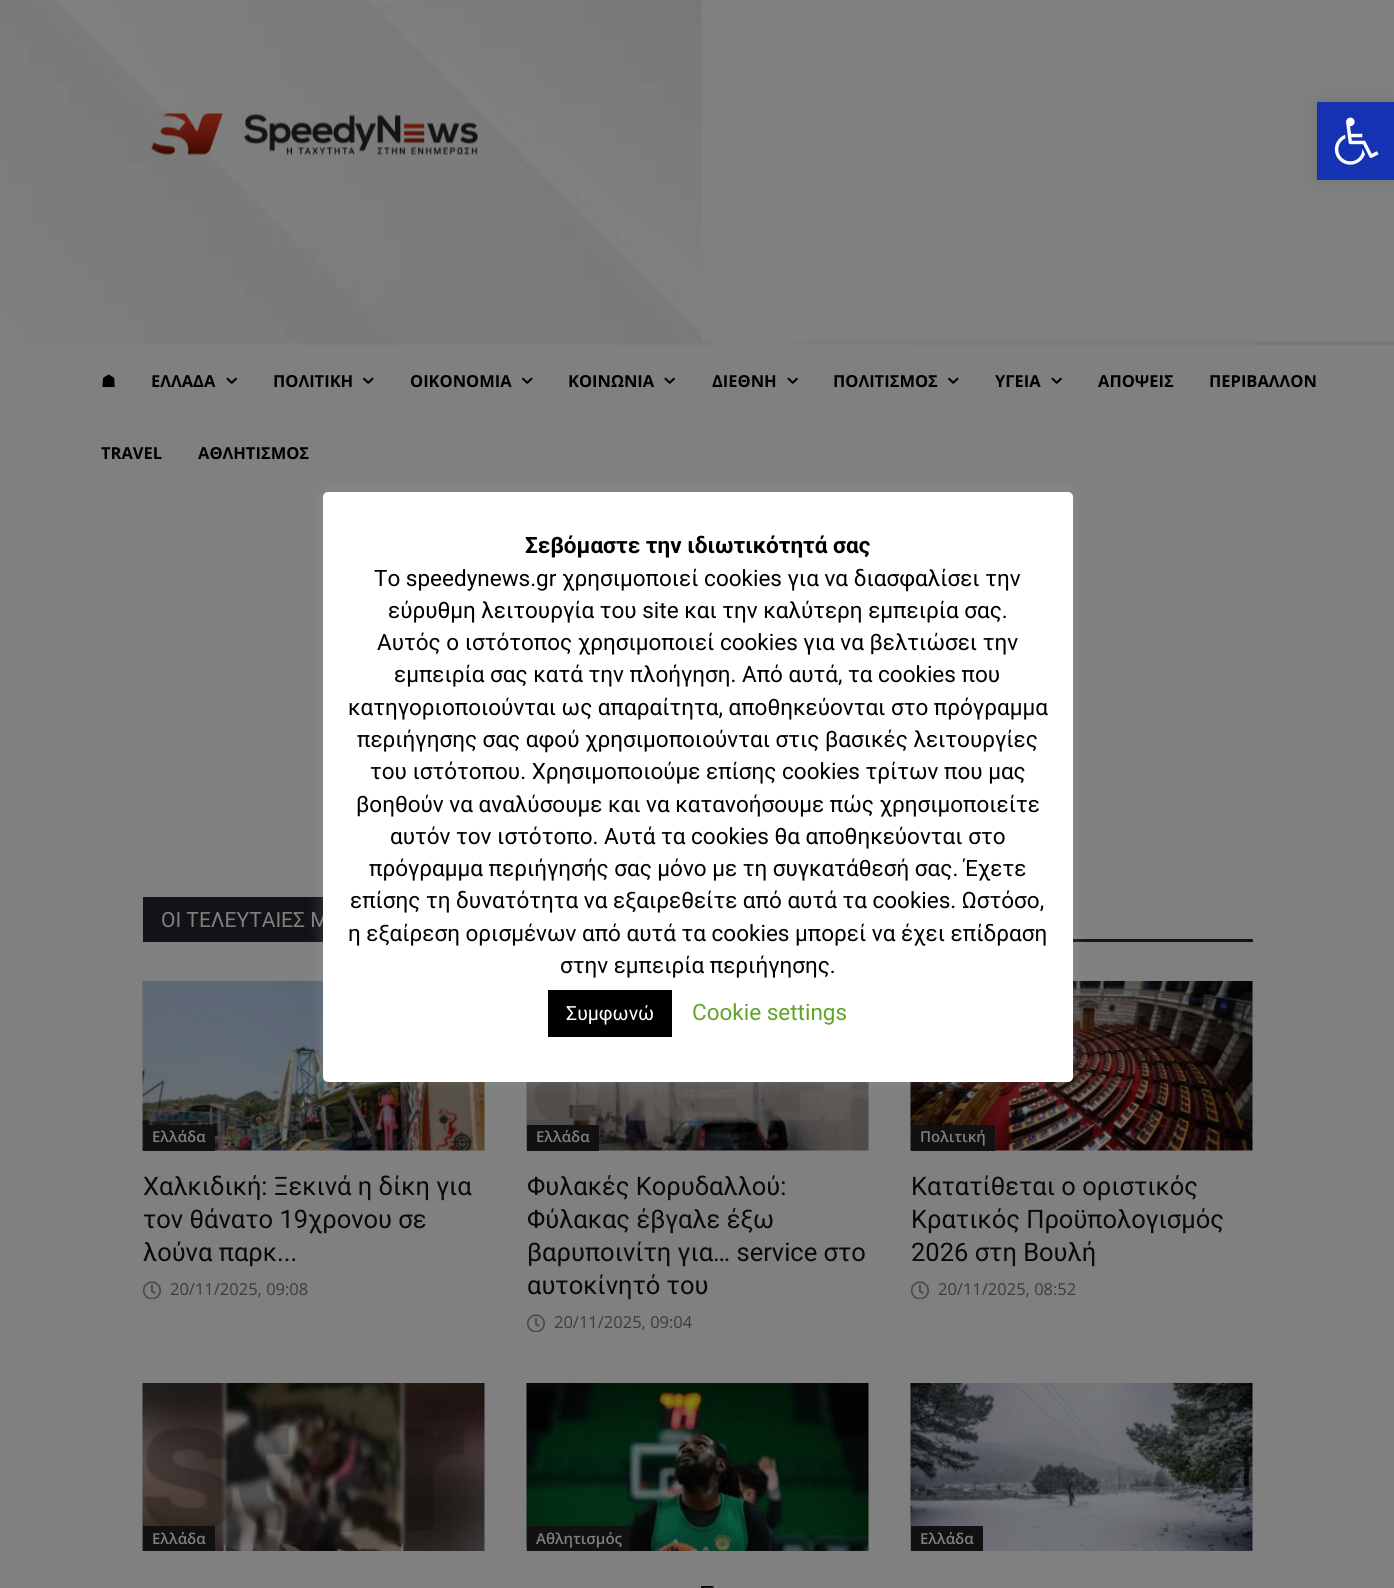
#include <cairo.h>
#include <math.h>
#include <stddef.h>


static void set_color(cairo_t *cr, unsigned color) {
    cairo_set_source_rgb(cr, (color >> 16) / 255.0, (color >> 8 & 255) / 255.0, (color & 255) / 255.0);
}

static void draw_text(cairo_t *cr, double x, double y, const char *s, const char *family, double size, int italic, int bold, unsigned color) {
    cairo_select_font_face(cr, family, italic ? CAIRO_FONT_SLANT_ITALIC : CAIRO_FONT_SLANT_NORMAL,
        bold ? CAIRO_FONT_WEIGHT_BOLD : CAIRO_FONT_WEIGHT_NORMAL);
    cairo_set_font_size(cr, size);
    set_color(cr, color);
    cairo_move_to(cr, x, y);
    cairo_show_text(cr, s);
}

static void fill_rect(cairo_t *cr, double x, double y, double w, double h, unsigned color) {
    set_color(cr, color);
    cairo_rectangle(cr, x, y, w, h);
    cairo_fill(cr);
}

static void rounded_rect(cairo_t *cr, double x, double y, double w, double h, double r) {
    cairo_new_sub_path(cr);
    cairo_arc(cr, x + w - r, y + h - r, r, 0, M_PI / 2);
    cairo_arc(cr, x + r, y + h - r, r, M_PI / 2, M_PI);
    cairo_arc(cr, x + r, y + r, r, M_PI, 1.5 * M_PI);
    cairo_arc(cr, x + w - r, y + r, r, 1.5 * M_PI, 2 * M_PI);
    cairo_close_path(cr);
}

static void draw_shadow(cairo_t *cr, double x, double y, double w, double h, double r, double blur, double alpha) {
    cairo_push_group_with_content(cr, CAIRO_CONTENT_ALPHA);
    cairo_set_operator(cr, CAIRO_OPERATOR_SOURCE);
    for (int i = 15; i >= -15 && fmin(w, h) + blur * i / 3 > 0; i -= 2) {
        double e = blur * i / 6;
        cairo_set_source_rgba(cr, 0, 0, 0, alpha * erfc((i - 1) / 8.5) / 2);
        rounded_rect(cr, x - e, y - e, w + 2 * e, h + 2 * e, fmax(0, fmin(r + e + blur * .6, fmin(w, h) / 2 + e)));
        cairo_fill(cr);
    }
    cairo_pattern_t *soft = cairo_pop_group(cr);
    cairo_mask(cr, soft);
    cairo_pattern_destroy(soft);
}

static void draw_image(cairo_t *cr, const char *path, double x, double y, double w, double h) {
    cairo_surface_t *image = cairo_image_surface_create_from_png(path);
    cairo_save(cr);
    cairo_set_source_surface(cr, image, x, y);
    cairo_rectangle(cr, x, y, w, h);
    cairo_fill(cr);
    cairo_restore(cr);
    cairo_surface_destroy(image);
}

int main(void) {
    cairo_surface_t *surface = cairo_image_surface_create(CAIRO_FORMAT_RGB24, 1394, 1588);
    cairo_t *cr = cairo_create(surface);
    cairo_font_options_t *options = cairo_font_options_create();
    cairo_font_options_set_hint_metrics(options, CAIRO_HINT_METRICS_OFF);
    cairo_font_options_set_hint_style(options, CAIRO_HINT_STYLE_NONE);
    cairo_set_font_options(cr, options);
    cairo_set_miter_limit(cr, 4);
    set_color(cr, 0x808080);
    cairo_paint(cr);
    draw_image(cr, "assets/img2.png", 0, 0, 1394, 345);
    fill_rect(cr, 702, 0, 692, 341, 0x808080);
    set_color(cr, 0x000000);
    draw_shadow(cr, 1317, 102, 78, 78, 0, 7.5, 0.1);
    fill_rect(cr, 1317, 102, 77, 78, 0x1532B2);
    draw_image(cr, "assets/img1.png", 1334, 117, 45, 48);
    draw_image(cr, "assets/img3.png", 151, 113, 327, 42);
    draw_text(cr, 101, 387, "☗", "DejaVu Sans", 16.5, 0, 1, 0x000000);
    draw_text(cr, 151, 387, "ΕΛΛΑΔΑ", "Open Sans", 16.5, 0, 1, 0x000000);
    draw_image(cr, "assets/img4.png", 226, 377, 11, 7);
    draw_text(cr, 273, 387, "ΠΟΛΙΤΙΚΗ", "Open Sans", 16.5, 0, 1, 0x000000);
    draw_image(cr, "assets/img5.png", 363, 377, 11, 7);
    draw_text(cr, 410, 387, "ΟΙΚΟΝΟΜΙΑ", "Open Sans", 16.5, 0, 1, 0x000000);
    draw_image(cr, "assets/img5.png", 522, 377, 11, 7);
    draw_text(cr, 568, 387, "ΚΟΙΝΩΝΙΑ", "Open Sans", 16.5, 0, 1, 0x000000);
    draw_image(cr, "assets/img4.png", 664, 377, 11, 7);
    draw_text(cr, 712, 387, "ΔΙΕΘΝΗ", "Open Sans", 16.5, 0, 1, 0x000000);
    draw_image(cr, "assets/img4.png", 787, 377, 11, 7);
    draw_text(cr, 833, 387, "ΠΟΛΙΤΙΣΜΟΣ", "Open Sans", 16.5, 0, 1, 0x000000);
    draw_image(cr, "assets/img5.png", 948, 377, 11, 7);
    draw_text(cr, 995, 387, "ΥΓΕΙΑ", "Open Sans", 16.5, 0, 1, 0x000000);
    draw_image(cr, "assets/img4.png", 1051, 377, 11, 7);
    draw_text(cr, 1098, 387, "ΑΠΟΨΕΙΣ", "Open Sans", 16.5, 0, 1, 0x000000);
    draw_text(cr, 1209, 387, "ΠΕΡΙΒΑΛΛΟΝ", "Open Sans", 16.5, 0, 1, 0x000000);
    draw_text(cr, 101, 459, "TRAVEL", "Open Sans", 16.5, 0, 1, 0x000000);
    draw_text(cr, 198, 459, "ΑΘΛΗΤΙΣΜΟΣ", "Open Sans", 16.5, 0, 1, 0x000000);
    fill_rect(cr, 143, 939, 1110, 3, 0x121316);
    fill_rect(cr, 143, 897, 180, 42, 0x121316);
    draw_text(cr, 161, 927, "ΟΙ ΤΕΛΕΥΤΑΙΕΣ Μ", "Roboto", 21, 0, 0, 0x808080);
    draw_image(cr, "assets/img6.png", 142, 981, 343, 170);
    fill_rect(cr, 143, 1125, 72, 26, 0x111111);
    draw_text(cr, 152, 1142, "Ελλάδα", "Open Sans SemiBold", 15, 0, 0, 0x808080);
    draw_text(cr, 143, 1195, "Χαλκιδική: Ξεκινά η δίκη για", "Roboto", 25.5, 0, 0, 0x090909);
    draw_text(cr, 143, 1228, "τον θάνατο 19χρονου σε", "Roboto", 25.5, 0, 0, 0x090909);
    draw_text(cr, 143, 1261, "λούνα παρκ...", "Roboto", 25.5, 0, 0, 0x090909);
    draw_image(cr, "assets/img7.png", 143, 1281, 19, 18);
    draw_text(cr, 170, 1295, "20/11/2025, 09:08", "Open Sans", 16.5, 0, 0, 0x3B3B3B);
    draw_image(cr, "assets/img8.png", 526, 1082, 343, 69);
    fill_rect(cr, 527, 1125, 72, 26, 0x111111);
    draw_text(cr, 536, 1142, "Ελλάδα", "Open Sans SemiBold", 15, 0, 0, 0x808080);
    draw_text(cr, 527, 1195, "Φυλακές Κορυδαλλού:", "Roboto", 25.5, 0, 0, 0x090909);
    draw_text(cr, 527, 1228, "Φύλακας έβγαλε έξω", "Roboto", 25.5, 0, 0, 0x090909);
    draw_text(cr, 527, 1261, "βαρυποινίτη για… service στο", "Roboto", 25.5, 0, 0, 0x090909);
    draw_text(cr, 527, 1294, "αυτοκίνητό του", "Roboto", 25.5, 0, 0, 0x090909);
    draw_image(cr, "assets/img7.png", 527, 1314, 19, 18);
    draw_text(cr, 554, 1328, "20/11/2025, 09:04", "Open Sans", 16.5, 0, 0, 0x3B3B3B);
    draw_image(cr, "assets/img9.png", 910, 981, 343, 170);
    fill_rect(cr, 911, 1125, 84, 26, 0x111111);
    draw_text(cr, 920, 1142, "Πολιτική", "Open Sans SemiBold", 15, 0, 0, 0x808080);
    draw_text(cr, 911, 1195, "Κατατίθεται ο οριστικός", "Roboto", 25.5, 0, 0, 0x090909);
    draw_text(cr, 911, 1228, "Κρατικός Προϋπολογισμός", "Roboto", 25.5, 0, 0, 0x090909);
    draw_text(cr, 911, 1261, "2026 στη Βουλή", "Roboto", 25.5, 0, 0, 0x090909);
    draw_image(cr, "assets/img7.png", 911, 1281, 19, 18);
    draw_text(cr, 938, 1295, "20/11/2025, 08:52", "Open Sans", 16.5, 0, 0, 0x3B3B3B);
    draw_image(cr, "assets/img10.png", 142, 1383, 343, 168);
    fill_rect(cr, 143, 1526, 72, 25, 0x111111);
    draw_text(cr, 152, 1544, "Ελλάδα", "Open Sans SemiBold", 15, 0, 0, 0x808080);
    draw_image(cr, "assets/img11.png", 526, 1383, 343, 168);
    fill_rect(cr, 527, 1526, 103, 25, 0x111111);
    draw_text(cr, 536, 1544, "Αθλητισμός", "Open Sans SemiBold", 15, 0, 0, 0x808080);
    draw_text(cr, 699, 1596, "–", "Roboto", 25.5, 0, 0, 0x090909);
    draw_image(cr, "assets/img12.png", 910, 1383, 343, 168);
    fill_rect(cr, 911, 1526, 72, 25, 0x111111);
    draw_text(cr, 920, 1544, "Ελλάδα", "Open Sans SemiBold", 15, 0, 0, 0x808080);
    set_color(cr, 0xACABAB);
    draw_shadow(cr, 323, 491, 750, 589, 5, 7.5, 0.3);
    set_color(cr, 0xFFFFFF);
    rounded_rect(cr, 323, 492, 750, 590, 5);
    cairo_fill(cr);
    draw_text(cr, 525, 553, "Σεβόμαστε την ιδιωτικότητά σας", "Roboto", 22.5, 0, 1, 0x000000);
    draw_text(cr, 374, 586, "Το speedynews.gr χρησιμοποιεί cookies για να διασφαλίσει την", "Roboto", 22.5, 0, 0, 0x000000);
    draw_text(cr, 388, 618, "εύρυθμη λειτουργία του site και την καλύτερη εμπειρία σας.", "Roboto", 22.5, 0, 0, 0x000000);
    draw_text(cr, 377, 650, "Αυτός ο ιστότοπος χρησιμοποιεί cookies για να βελτιώσει την", "Roboto", 22.5, 0, 0, 0x000000);
    draw_text(cr, 394, 682, "εμπειρία σας κατά την πλοήγηση. Από αυτά, τα cookies που", "Roboto", 22.5, 0, 0, 0x000000);
    draw_text(cr, 348, 715, "κατηγοριοποιούνται ως απαραίτητα, αποθηκεύονται στο πρόγραμμα", "Roboto", 22.5, 0, 0, 0x000000);
    draw_text(cr, 357, 747, "περιήγησης σας αφού χρησιμοποιούνται στις βασικές λειτουργίες", "Roboto", 22.5, 0, 0, 0x000000);
    draw_text(cr, 370, 779, "του ιστότοπου. Χρησιμοποιούμε επίσης cookies τρίτων που μας", "Roboto", 22.5, 0, 0, 0x000000);
    draw_text(cr, 356, 812, "βοηθούν να αναλύσουμε και να κατανοήσουμε πώς χρησιμοποιείτε", "Roboto", 22.5, 0, 0, 0x000000);
    draw_text(cr, 390, 844, "αυτόν τον ιστότοπο. Αυτά τα cookies θα αποθηκεύονται στο", "Roboto", 22.5, 0, 0, 0x000000);
    draw_text(cr, 369, 876, "πρόγραμμα περιήγησής σας μόνο με τη συγκατάθεσή σας. Έχετε", "Roboto", 22.5, 0, 0, 0x000000);
    draw_text(cr, 350, 908, "επίσης τη δυνατότητα να εξαιρεθείτε από αυτά τα cookies. Ωστόσο,", "Roboto", 22.5, 0, 0, 0x000000);
    draw_text(cr, 348, 941, "η εξαίρεση ορισμένων από αυτά τα cookies μπορεί να έχει επίδραση", "Roboto", 22.5, 0, 0, 0x000000);
    draw_text(cr, 560, 973, "στην εμπειρία περιήγησης.", "Roboto", 22.5, 0, 0, 0x000000);
    fill_rect(cr, 548, 990, 124, 47, 0x000000);
    draw_text(cr, 566, 1020, "Συμφωνώ", "Roboto", 19.5, 0, 0, 0xFFFFFF);
    draw_text(cr, 692, 1020, "Cookie settings", "Roboto", 22.5, 0, 0, 0x62A329);
    cairo_surface_write_to_png(surface, "output.png");
    cairo_font_options_destroy(options);
    cairo_destroy(cr);
    cairo_surface_destroy(surface);
    return 0;
}
